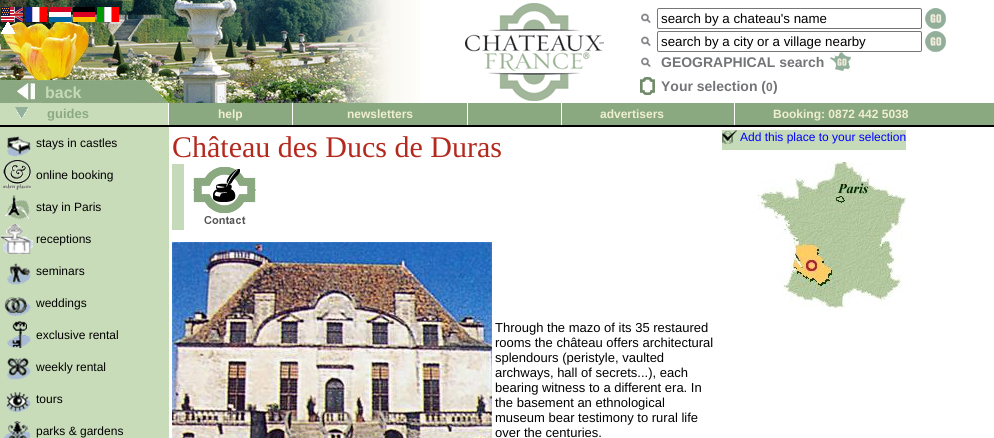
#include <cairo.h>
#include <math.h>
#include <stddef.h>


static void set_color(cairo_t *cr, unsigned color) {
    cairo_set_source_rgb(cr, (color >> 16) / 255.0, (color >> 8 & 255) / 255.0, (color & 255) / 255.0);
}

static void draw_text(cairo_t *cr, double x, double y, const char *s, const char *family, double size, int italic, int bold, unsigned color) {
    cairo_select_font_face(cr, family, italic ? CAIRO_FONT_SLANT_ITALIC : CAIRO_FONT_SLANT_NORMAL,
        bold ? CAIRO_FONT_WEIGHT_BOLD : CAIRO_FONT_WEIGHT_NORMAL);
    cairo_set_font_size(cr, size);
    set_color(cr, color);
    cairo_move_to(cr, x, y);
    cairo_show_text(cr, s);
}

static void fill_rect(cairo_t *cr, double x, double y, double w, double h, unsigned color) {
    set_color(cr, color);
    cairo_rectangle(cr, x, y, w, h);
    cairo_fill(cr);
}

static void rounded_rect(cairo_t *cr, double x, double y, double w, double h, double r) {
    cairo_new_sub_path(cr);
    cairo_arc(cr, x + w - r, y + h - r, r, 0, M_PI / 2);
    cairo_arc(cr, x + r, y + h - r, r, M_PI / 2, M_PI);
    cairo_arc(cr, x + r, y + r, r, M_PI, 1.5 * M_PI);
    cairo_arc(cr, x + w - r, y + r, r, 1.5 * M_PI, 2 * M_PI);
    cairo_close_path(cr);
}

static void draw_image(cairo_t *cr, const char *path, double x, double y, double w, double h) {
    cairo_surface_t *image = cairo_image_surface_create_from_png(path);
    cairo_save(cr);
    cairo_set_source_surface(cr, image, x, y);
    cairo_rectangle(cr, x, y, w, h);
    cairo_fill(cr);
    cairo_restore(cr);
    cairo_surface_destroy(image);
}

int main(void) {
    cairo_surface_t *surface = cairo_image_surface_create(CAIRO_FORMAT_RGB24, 994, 438);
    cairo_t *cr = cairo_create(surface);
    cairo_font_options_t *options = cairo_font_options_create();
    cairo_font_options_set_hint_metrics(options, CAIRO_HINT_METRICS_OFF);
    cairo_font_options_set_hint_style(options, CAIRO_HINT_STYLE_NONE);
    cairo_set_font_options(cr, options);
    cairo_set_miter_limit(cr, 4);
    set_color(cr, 0xFFFFFF);
    cairo_paint(cr);
    draw_image(cr, "assets/img1.png", 0, 0, 420, 103);
    draw_image(cr, "assets/img2.png", 1, 7, 22, 15);
    draw_image(cr, "assets/img3.png", 1, 22, 14, 12);
    draw_image(cr, "assets/img4.png", 25, 7, 22, 15);
    draw_image(cr, "assets/img5.png", 49, 7, 22, 15);
    draw_image(cr, "assets/img6.png", 73, 7, 22, 15);
    draw_image(cr, "assets/img7.png", 97, 7, 22, 15);
    draw_text(cr, 45, 98, "back", "Liberation Sans", 16, 0, 1, 0xC5DAB8);
    draw_image(cr, "assets/img8.png", 465, 3, 139, 98);
    draw_image(cr, "assets/img9.png", 641, 13, 10, 11);
    rounded_rect(cr, 657.5, 8.5, 264, 20, 1.5);
    set_color(cr, 0x767676);
    cairo_set_line_width(cr, 1);
    cairo_stroke(cr);
    draw_text(cr, 661, 23, "search by a chateau's name", "Liberation Sans", 13.3, 0, 0, 0x000000);
    draw_image(cr, "assets/img10.png", 925, 8, 21, 21);
    draw_image(cr, "assets/img9.png", 641, 36, 10, 11);
    rounded_rect(cr, 657.5, 31.5, 264, 20, 1.5);
    set_color(cr, 0x767676);
    cairo_stroke(cr);
    draw_text(cr, 661, 46, "search by a city or a village nearby", "Liberation Sans", 13.3, 0, 0, 0x000000);
    draw_image(cr, "assets/img10.png", 925, 31, 21, 21);
    draw_image(cr, "assets/img9.png", 641, 57, 10, 11);
    draw_text(cr, 661, 67, "GEOGRAPHICAL search", "Liberation Sans", 14, 0, 1, 0x737477);
    draw_image(cr, "assets/img11.png", 830, 52, 21, 19);
    draw_image(cr, "assets/img12.png", 640, 77, 15, 18);
    draw_text(cr, 661, 91, "Your selection (", "Liberation Sans", 14, 0, 1, 0x737477);
    draw_text(cr, 766, 91, "0", "Liberation Sans", 12, 0, 1, 0x737477);
    draw_text(cr, 773, 91, ")", "Liberation Sans", 14, 0, 1, 0x737477);
    fill_rect(cr, 0, 103, 168, 22, 0xC9DCBA);
    draw_image(cr, "assets/img13.png", 15, 107, 13, 11);
    draw_text(cr, 47, 118, "guides", "Liberation Sans", 13, 0, 1, 0x8BA981);
    fill_rect(cr, 169, 103, 123, 22, 0x8BA981);
    draw_text(cr, 218, 118, "help", "Liberation Sans", 12, 0, 1, 0xEFEFD0);
    fill_rect(cr, 293, 103, 174, 22, 0x8BA981);
    draw_text(cr, 347, 118, "newsletters", "Liberation Sans", 12, 0, 1, 0xEFEFD0);
    fill_rect(cr, 468, 103, 93, 22, 0x8BA981);
    fill_rect(cr, 562, 103, 172, 22, 0x8BA981);
    draw_text(cr, 600, 118, "advertisers", "Liberation Sans", 12, 0, 1, 0xEFEFD0);
    fill_rect(cr, 735, 103, 259, 22, 0x8BA981);
    draw_text(cr, 773, 118, "Booking: 0872 442 5038", "Liberation Sans", 12, 0, 1, 0xEFEFD0);
    fill_rect(cr, 0, 125, 994, 2, 0x000000);
    fill_rect(cr, 0, 127, 169, 311, 0xC9DCBA);
    draw_image(cr, "assets/img14.png", 7, 136, 24, 21);
    draw_text(cr, 36, 147, "stays in castles", "Liberation Sans", 12, 0, 0, 0x000000);
    draw_image(cr, "assets/img15.png", 3, 160, 28, 30);
    draw_text(cr, 36, 179, "online booking", "Liberation Sans", 12, 0, 0, 0x000000);
    draw_image(cr, "assets/img16.png", 5, 195, 26, 25);
    draw_text(cr, 36, 211, "stay in Paris", "Liberation Sans", 12, 0, 0, 0x000000);
    draw_image(cr, "assets/img17.png", 1, 224, 32, 30);
    draw_text(cr, 36, 243, "receptions", "Liberation Sans", 12, 0, 0, 0x000000);
    draw_image(cr, "assets/img18.png", 7, 263, 24, 22);
    draw_text(cr, 36, 275, "seminars", "Liberation Sans", 12, 0, 0, 0x000000);
    draw_image(cr, "assets/img19.png", 4, 297, 27, 20);
    draw_text(cr, 36, 307, "weddings", "Liberation Sans", 12, 0, 0, 0x000000);
    draw_image(cr, "assets/img20.png", 7, 321, 24, 27);
    draw_text(cr, 36, 339, "exclusive rental", "Liberation Sans", 12, 0, 0, 0x000000);
    draw_image(cr, "assets/img21.png", 7, 358, 24, 22);
    draw_text(cr, 36, 371, "weekly rental", "Liberation Sans", 12, 0, 0, 0x000000);
    draw_image(cr, "assets/img22.png", 6, 392, 25, 21);
    draw_text(cr, 36, 403, "tours", "Liberation Sans", 12, 0, 0, 0x000000);
    draw_image(cr, "assets/img23.png", 4, 421, 27, 17);
    draw_text(cr, 36, 435, "parks & gardens", "Liberation Sans", 12, 0, 0, 0x000000);
    draw_text(cr, 172, 157, "Château des Ducs de Duras", "Liberation Serif", 30, 0, 0, 0xB3291E);
    fill_rect(cr, 172, 164, 12, 66, 0xC5DAB8);
    draw_image(cr, "assets/img24.png", 193, 167, 63, 57);
    draw_image(cr, "assets/img25.png", 172, 242, 320, 196);
    draw_text(cr, 495, 332, "Through the mazo of its 35 restaured", "Liberation Sans", 13, 0, 0, 0x000000);
    draw_text(cr, 495, 347, "rooms the château offers architectural", "Liberation Sans", 13, 0, 0, 0x000000);
    draw_text(cr, 495, 362, "splendours (peristyle, vaulted", "Liberation Sans", 13, 0, 0, 0x000000);
    draw_text(cr, 495, 377, "archways, hall of secrets...), each", "Liberation Sans", 13, 0, 0, 0x000000);
    draw_text(cr, 495, 392, "bearing witness to a different era. In", "Liberation Sans", 13, 0, 0, 0x000000);
    draw_text(cr, 495, 407, "the basement an ethnological", "Liberation Sans", 13, 0, 0, 0x000000);
    draw_text(cr, 495, 422, "museum bear testimony to rural life", "Liberation Sans", 13, 0, 0, 0x000000);
    draw_text(cr, 495, 437, "over the centuries.", "Liberation Sans", 13, 0, 0, 0x000000);
    fill_rect(cr, 722, 130, 184, 20, 0xC5DAB9);
    draw_image(cr, "assets/img26.png", 722, 130, 15, 14);
    draw_text(cr, 740, 141, "Add this place to your selection", "Liberation Sans", 12, 0, 0, 0x0000FF);
    draw_image(cr, "assets/img27.png", 758, 162, 148, 148);
    cairo_surface_write_to_png(surface, "output.png");
    cairo_font_options_destroy(options);
    cairo_destroy(cr);
    cairo_surface_destroy(surface);
    return 0;
}
